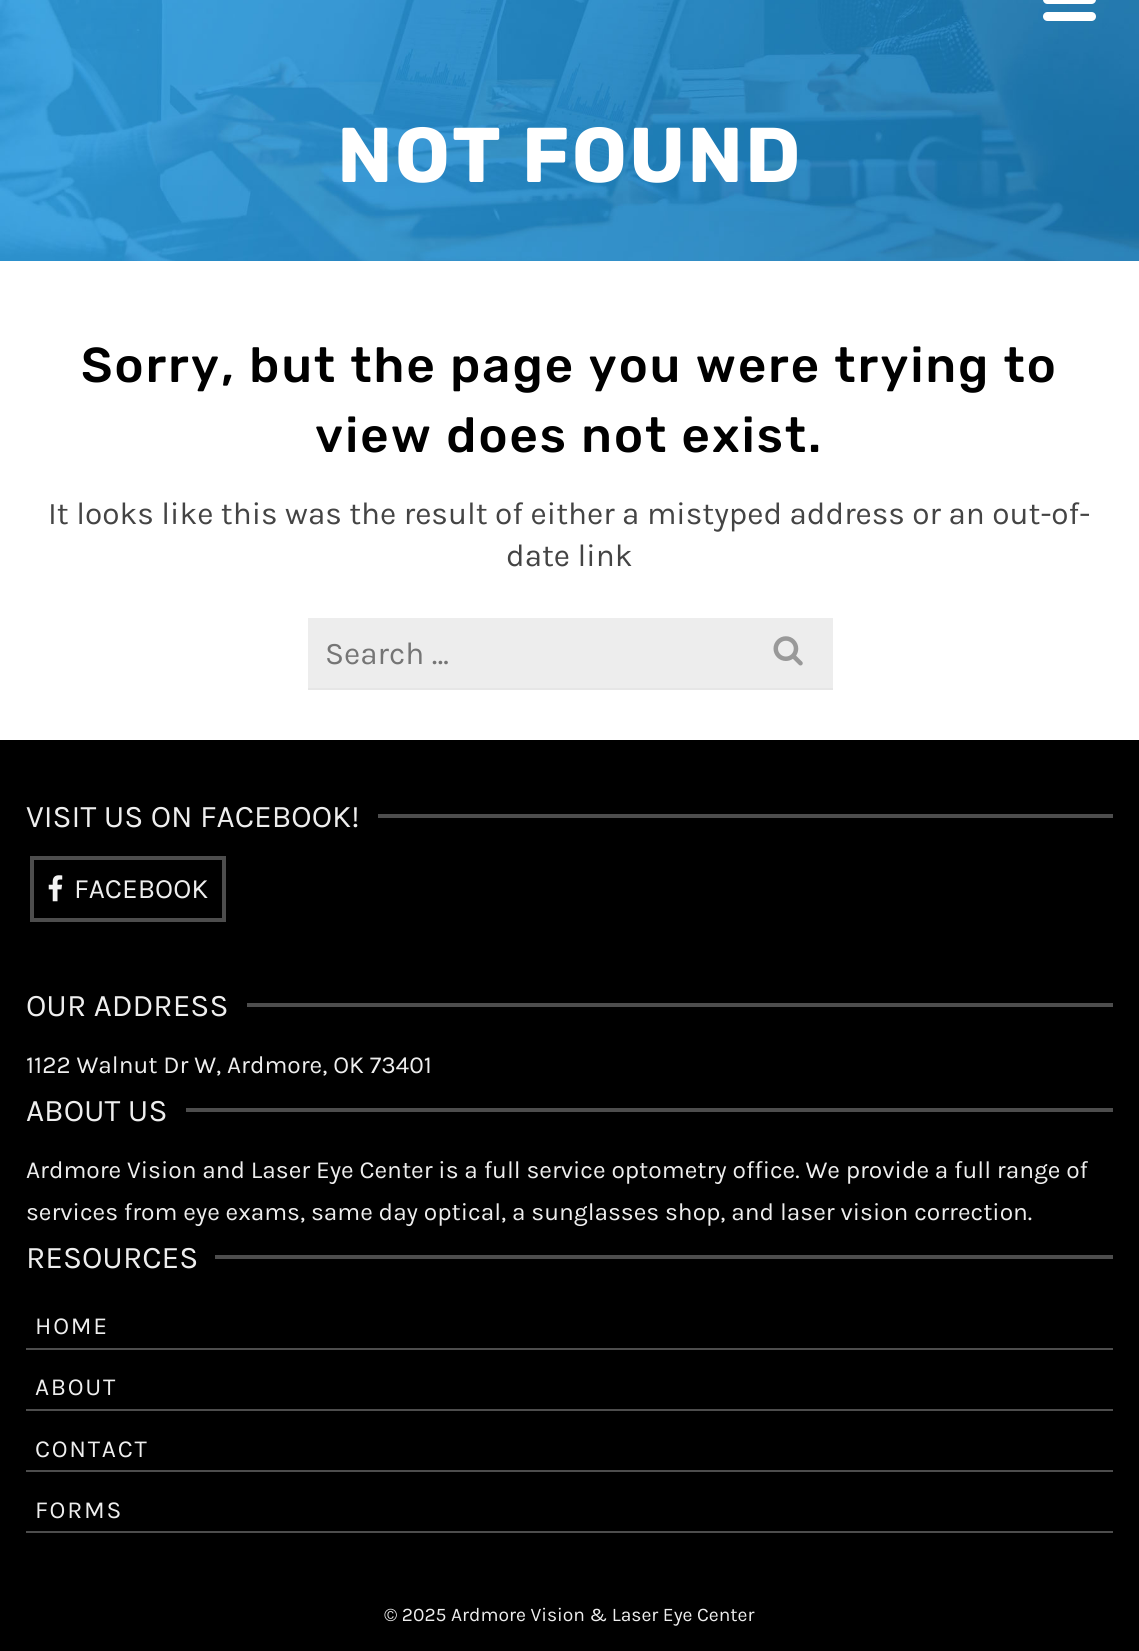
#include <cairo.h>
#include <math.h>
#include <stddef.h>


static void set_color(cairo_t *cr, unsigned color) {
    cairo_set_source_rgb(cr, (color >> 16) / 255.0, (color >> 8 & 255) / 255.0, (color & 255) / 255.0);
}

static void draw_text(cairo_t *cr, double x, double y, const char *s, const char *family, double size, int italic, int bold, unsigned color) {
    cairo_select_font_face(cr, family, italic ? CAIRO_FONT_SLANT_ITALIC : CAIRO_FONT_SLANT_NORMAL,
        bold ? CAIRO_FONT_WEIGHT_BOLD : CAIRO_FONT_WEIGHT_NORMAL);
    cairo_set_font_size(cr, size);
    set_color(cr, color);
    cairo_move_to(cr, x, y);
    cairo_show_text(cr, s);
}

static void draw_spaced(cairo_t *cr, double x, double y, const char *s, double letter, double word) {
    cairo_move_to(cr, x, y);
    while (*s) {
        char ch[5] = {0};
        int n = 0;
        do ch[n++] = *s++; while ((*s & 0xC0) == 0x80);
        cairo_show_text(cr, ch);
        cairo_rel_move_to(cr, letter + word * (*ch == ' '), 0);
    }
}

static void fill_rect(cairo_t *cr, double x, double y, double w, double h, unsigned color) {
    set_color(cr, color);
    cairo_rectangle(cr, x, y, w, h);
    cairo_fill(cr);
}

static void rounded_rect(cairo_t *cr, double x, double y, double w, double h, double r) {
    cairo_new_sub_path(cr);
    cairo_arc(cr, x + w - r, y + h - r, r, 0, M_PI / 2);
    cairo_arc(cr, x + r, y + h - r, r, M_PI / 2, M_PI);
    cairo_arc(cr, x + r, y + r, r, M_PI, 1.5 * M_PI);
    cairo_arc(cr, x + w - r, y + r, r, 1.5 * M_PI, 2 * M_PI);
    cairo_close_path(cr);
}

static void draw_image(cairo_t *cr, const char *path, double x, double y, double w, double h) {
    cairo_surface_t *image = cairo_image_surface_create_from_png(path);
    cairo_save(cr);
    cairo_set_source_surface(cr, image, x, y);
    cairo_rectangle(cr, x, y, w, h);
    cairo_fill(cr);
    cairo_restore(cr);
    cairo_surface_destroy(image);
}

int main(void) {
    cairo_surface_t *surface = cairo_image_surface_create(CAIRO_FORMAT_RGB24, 1139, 1651);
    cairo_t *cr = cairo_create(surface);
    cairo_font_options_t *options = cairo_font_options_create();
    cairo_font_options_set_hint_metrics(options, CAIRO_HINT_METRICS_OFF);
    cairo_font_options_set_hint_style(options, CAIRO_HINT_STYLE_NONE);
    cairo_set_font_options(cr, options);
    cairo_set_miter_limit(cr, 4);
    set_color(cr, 0xFFFFFF);
    cairo_paint(cr);
    draw_image(cr, "assets/img1.png", 0, 0, 1139, 261);
    set_color(cr, 0xFFFFFF);
    rounded_rect(cr, 1043, -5, 53, 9, 4.5);
    cairo_fill(cr);
    rounded_rect(cr, 1043, 12, 53, 9, 4.5);
    cairo_fill(cr);
    cairo_select_font_face(cr, "Rubik", CAIRO_FONT_SLANT_NORMAL, CAIRO_FONT_WEIGHT_BOLD);
    cairo_set_font_size(cr, 77.5);
    draw_spaced(cr, 337, 182, "NOT FOUND", 2.1, 0);
    cairo_select_font_face(cr, "Rubik Medium", CAIRO_FONT_SLANT_NORMAL, CAIRO_FONT_WEIGHT_NORMAL);
    cairo_set_font_size(cr, 49);
    set_color(cr, 0x000000);
    draw_spaced(cr, 81, 382, "Sorry, but the page you were trying to", 2.1, 0);
    draw_spaced(cr, 315, 452, "view does not exist.", 2.1, 0);
    draw_text(cr, 48, 524, "It looks like this was the result of either a mistyped address or an out-of-", "Karla", 31.5, 0, 0, 0x444444);
    draw_text(cr, 506, 566, "date link", "Karla", 31.5, 0, 0, 0x444444);
    fill_rect(cr, 308, 688, 525, 2, 0xE6E6E6);
    fill_rect(cr, 308, 618, 525, 70, 0xEDEDED);
    draw_text(cr, 325, 664, "Search …", "Karla", 31.5, 0, 0, 0x757575);
    draw_image(cr, "assets/img2.png", 773, 636, 30, 30);
    fill_rect(cr, 0, 740, 1139, 911, 0x000000);
    draw_text(cr, 26, 827, "VISIT US ON FACEBOOK!", "Karla", 31.5, 0, 0, 0xEEEEEE);
    fill_rect(cr, 378, 814, 735, 4, 0x4D4D4D);
    cairo_rectangle(cr, 32, 858, 192, 62);
    cairo_set_line_width(cr, 4);
    cairo_stroke(cr);
    draw_image(cr, "assets/img3.png", 48, 875, 15, 27);
    draw_text(cr, 74, 898, "FACEBOOK", "Karla", 28, 0, 0, 0xEEEEEE);
    draw_text(cr, 26, 1016, "OUR ADDRESS", "Karla", 31.5, 0, 0, 0xEEEEEE);
    fill_rect(cr, 247, 1003, 866, 4, 0x4D4D4D);
    draw_text(cr, 26, 1073, "1122 Walnut Dr W, Ardmore, OK 73401", "Karla", 24.5, 0, 0, 0xEEEEEE);
    draw_text(cr, 26, 1121, "ABOUT US", "Karla", 31.5, 0, 0, 0xEEEEEE);
    fill_rect(cr, 186, 1108, 927, 4, 0x4D4D4D);
    draw_text(cr, 26, 1178, "Ardmore Vision and Laser Eye Center is a full service optometry office. We provide a full range of", "Karla", 24.5, 0, 0, 0xEEEEEE);
    draw_text(cr, 26, 1220, "services from eye exams, same day optical, a sunglasses shop, and laser vision correction.", "Karla", 24.5, 0, 0, 0xEEEEEE);
    draw_text(cr, 26, 1268, "RESOURCES", "Karla", 31.5, 0, 0, 0xEEEEEE);
    fill_rect(cr, 215, 1255, 898, 4, 0x4D4D4D);
    fill_rect(cr, 26, 1348, 1087, 2, 0x4D4D4D);
    cairo_set_font_size(cr, 24.5);
    set_color(cr, 0xEEEEEE);
    draw_spaced(cr, 35, 1334, "HOME", 1.75, 0);
    fill_rect(cr, 26, 1409, 1087, 2, 0x4D4D4D);
    set_color(cr, 0xEEEEEE);
    draw_spaced(cr, 35, 1395, "ABOUT", 1.75, 0);
    fill_rect(cr, 26, 1470, 1087, 2, 0x4D4D4D);
    set_color(cr, 0xEEEEEE);
    draw_spaced(cr, 35, 1457, "CONTACT", 1.75, 0);
    fill_rect(cr, 26, 1531, 1087, 2, 0x4D4D4D);
    set_color(cr, 0xEEEEEE);
    draw_spaced(cr, 35, 1518, "FORMS", 1.75, 0);
    draw_text(cr, 384, 1621, "© 2025 Ardmore Vision & Laser Eye Center", "Karla", 19.25, 0, 0, 0xEEEEEE);
    cairo_surface_write_to_png(surface, "output.png");
    cairo_font_options_destroy(options);
    cairo_destroy(cr);
    cairo_surface_destroy(surface);
    return 0;
}
